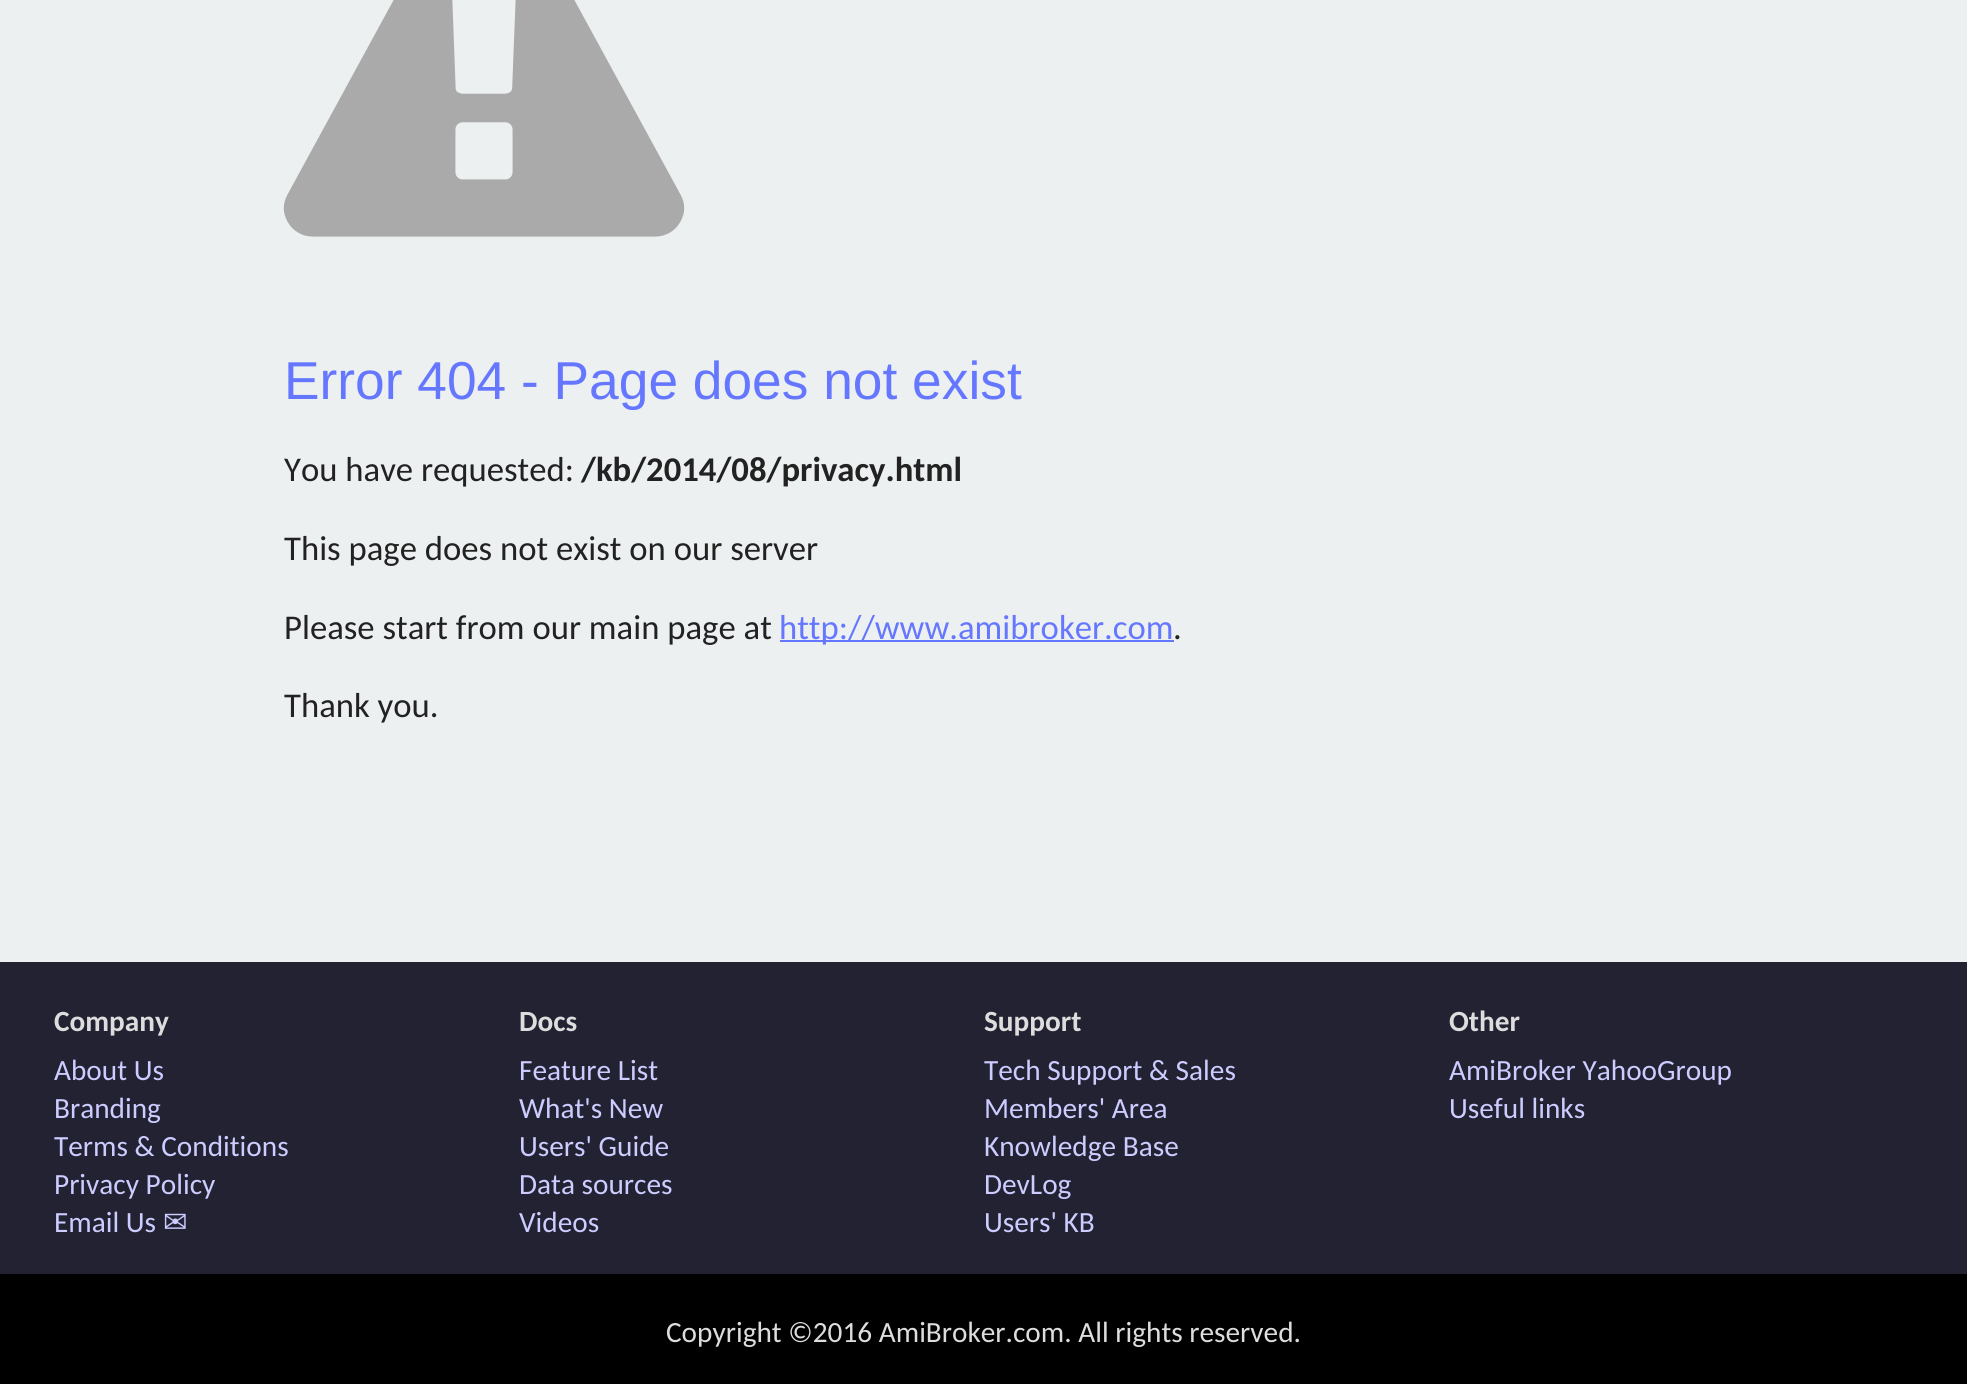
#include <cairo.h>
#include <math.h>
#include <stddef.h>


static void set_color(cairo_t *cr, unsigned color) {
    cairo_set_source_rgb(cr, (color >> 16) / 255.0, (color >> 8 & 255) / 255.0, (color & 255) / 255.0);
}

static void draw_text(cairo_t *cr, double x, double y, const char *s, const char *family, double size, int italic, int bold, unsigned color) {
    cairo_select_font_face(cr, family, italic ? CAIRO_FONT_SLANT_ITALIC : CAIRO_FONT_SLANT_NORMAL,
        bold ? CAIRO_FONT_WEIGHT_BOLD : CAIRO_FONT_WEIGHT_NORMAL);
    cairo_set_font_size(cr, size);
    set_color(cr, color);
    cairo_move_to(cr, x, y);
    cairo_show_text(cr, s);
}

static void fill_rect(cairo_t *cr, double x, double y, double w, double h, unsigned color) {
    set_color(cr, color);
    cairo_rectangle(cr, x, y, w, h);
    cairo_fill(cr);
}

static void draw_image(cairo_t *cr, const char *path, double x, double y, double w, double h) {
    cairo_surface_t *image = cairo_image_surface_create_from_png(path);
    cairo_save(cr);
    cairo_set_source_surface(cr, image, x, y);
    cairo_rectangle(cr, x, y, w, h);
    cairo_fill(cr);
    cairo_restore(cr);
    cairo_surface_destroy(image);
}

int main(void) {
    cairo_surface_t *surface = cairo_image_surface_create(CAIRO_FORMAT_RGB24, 1967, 1384);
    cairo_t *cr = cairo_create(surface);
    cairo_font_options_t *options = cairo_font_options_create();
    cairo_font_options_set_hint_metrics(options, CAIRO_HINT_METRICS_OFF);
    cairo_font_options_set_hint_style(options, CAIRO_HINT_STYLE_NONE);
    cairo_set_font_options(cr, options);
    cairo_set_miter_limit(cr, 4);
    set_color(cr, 0xECF0F1);
    cairo_paint(cr);
    draw_image(cr, "assets/img1.png", 283, 0, 402, 237);
    draw_text(cr, 284, 399, "Error 404 - Page does not exist", "Liberation Sans", 53.3, 0, 0, 0x6677FF);
    draw_text(cr, 284, 481, "You have requested:", "Carlito", 34.7, 0, 0, 0x222222);
    draw_text(cr, 581, 481, "/kb/2014/08/privacy.html", "Carlito", 34.7, 0, 1, 0x222222);
    draw_text(cr, 284, 560, "This page does not exist on our server", "Carlito", 34.7, 0, 0, 0x222222);
    draw_text(cr, 284, 639, "Please start from our main page at", "Carlito", 34.7, 0, 0, 0x222222);
    fill_rect(cr, 780, 640, 394, 2, 0x6677FF);
    draw_text(cr, 779, 639, "http://www.amibroker.com", "Carlito", 34.7, 0, 0, 0x6677FF);
    draw_text(cr, 1173, 639, ".", "Carlito", 34.7, 0, 0, 0x222222);
    draw_text(cr, 284, 717, "Thank you.", "Carlito", 34.7, 0, 0, 0x222222);
    fill_rect(cr, 0, 962, 1967, 312, 0x222233);
    draw_text(cr, 54, 1031, "Company", "Carlito", 29.3, 0, 1, 0xDDDDDD);
    draw_text(cr, 54, 1080, "About Us", "Carlito", 29.3, 0, 0, 0xCCCCFF);
    draw_text(cr, 54, 1118, "Branding", "Carlito", 29.3, 0, 0, 0xCCCCFF);
    draw_text(cr, 54, 1156, "Terms & Conditions", "Carlito", 29.3, 0, 0, 0xCCCCFF);
    draw_text(cr, 54, 1194, "Privacy Policy", "Carlito", 29.3, 0, 0, 0xCCCCFF);
    draw_text(cr, 54, 1232, "Email Us", "Carlito", 29.3, 0, 0, 0xCCCCFF);
    draw_text(cr, 163, 1232, "✉", "DejaVu Sans", 29.3, 0, 0, 0xCCCCFF);
    draw_text(cr, 519, 1031, "Docs", "Carlito", 29.3, 0, 1, 0xDDDDDD);
    draw_text(cr, 519, 1080, "Feature List", "Carlito", 29.3, 0, 0, 0xCCCCFF);
    draw_text(cr, 519, 1118, "What's New", "Carlito", 29.3, 0, 0, 0xCCCCFF);
    draw_text(cr, 519, 1156, "Users' Guide", "Carlito", 29.3, 0, 0, 0xCCCCFF);
    draw_text(cr, 519, 1194, "Data sources", "Carlito", 29.3, 0, 0, 0xCCCCFF);
    draw_text(cr, 519, 1232, "Videos", "Carlito", 29.3, 0, 0, 0xCCCCFF);
    draw_text(cr, 984, 1031, "Support", "Carlito", 29.3, 0, 1, 0xDDDDDD);
    draw_text(cr, 984, 1080, "Tech Support & Sales", "Carlito", 29.3, 0, 0, 0xCCCCFF);
    draw_text(cr, 984, 1118, "Members' Area", "Carlito", 29.3, 0, 0, 0xCCCCFF);
    draw_text(cr, 984, 1156, "Knowledge Base", "Carlito", 29.3, 0, 0, 0xCCCCFF);
    draw_text(cr, 984, 1194, "DevLog", "Carlito", 29.3, 0, 0, 0xCCCCFF);
    draw_text(cr, 984, 1232, "Users' KB", "Carlito", 29.3, 0, 0, 0xCCCCFF);
    draw_text(cr, 1449, 1031, "Other", "Carlito", 29.3, 0, 1, 0xDDDDDD);
    draw_text(cr, 1449, 1080, "AmiBroker YahooGroup", "Carlito", 29.3, 0, 0, 0xCCCCFF);
    draw_text(cr, 1449, 1118, "Useful links", "Carlito", 29.3, 0, 0, 0xCCCCFF);
    fill_rect(cr, 0, 1274, 1967, 110, 0x000000);
    draw_text(cr, 666, 1342, "Copyright ©2016 AmiBroker.com. All rights reserved.", "Carlito", 29.3, 0, 0, 0xDDDDDD);
    cairo_surface_write_to_png(surface, "output.png");
    cairo_font_options_destroy(options);
    cairo_destroy(cr);
    cairo_surface_destroy(surface);
    return 0;
}
